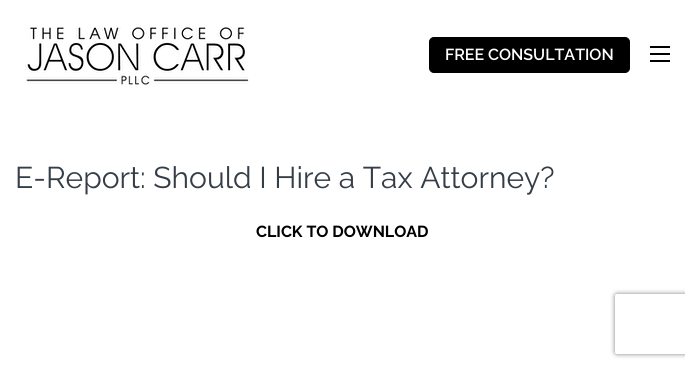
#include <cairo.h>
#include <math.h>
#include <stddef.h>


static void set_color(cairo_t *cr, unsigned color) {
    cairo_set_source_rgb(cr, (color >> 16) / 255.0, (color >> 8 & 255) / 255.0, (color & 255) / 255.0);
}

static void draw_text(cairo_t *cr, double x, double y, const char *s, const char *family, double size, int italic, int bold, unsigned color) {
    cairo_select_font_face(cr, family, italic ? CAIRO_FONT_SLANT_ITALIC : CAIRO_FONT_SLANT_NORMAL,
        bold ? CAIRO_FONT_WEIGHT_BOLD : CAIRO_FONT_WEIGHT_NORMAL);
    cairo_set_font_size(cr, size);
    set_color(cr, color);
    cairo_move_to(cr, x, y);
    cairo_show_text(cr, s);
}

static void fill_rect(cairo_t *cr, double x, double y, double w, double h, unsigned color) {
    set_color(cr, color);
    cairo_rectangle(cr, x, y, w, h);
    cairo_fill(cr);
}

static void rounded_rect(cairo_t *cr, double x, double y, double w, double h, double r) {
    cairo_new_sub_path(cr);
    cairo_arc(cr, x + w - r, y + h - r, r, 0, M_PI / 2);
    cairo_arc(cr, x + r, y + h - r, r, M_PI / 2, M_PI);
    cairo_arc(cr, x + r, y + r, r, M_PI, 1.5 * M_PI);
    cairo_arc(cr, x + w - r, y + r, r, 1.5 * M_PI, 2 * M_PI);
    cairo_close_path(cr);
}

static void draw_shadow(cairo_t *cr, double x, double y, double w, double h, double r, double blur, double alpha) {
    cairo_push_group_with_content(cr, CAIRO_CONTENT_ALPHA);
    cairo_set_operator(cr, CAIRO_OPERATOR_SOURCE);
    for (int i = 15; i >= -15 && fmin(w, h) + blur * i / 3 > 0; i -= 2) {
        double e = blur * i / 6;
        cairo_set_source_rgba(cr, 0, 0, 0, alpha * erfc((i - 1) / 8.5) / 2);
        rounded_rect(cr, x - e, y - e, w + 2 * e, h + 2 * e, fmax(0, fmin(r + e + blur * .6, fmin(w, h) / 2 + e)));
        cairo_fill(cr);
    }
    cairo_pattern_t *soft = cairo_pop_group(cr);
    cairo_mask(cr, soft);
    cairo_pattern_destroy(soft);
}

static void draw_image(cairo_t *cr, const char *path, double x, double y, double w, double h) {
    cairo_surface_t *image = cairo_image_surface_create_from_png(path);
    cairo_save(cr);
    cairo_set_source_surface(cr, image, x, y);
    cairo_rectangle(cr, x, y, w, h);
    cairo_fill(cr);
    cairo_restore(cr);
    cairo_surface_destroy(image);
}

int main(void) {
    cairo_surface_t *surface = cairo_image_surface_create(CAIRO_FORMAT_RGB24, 685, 368);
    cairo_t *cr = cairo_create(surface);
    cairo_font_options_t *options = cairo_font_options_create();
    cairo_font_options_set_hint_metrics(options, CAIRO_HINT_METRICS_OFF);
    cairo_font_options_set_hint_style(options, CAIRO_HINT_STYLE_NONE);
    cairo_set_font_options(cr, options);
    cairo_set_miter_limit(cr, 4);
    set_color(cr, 0xFFFFFF);
    cairo_paint(cr);
    draw_image(cr, "assets/img1.png", 25, 27, 224, 58);
    set_color(cr, 0x000000);
    rounded_rect(cr, 429.5, 37.5, 200, 35, 4.5);
    cairo_fill_preserve(cr);
    cairo_set_line_width(cr, 1);
    cairo_stroke(cr);
    draw_text(cr, 445, 60, "FREE CONSULTATION", "Raleway SemiBold", 16, 0, 0, 0xFFFFFF);
    fill_rect(cr, 650, 46, 20, 2, 0x000000);
    fill_rect(cr, 650, 53, 20, 2, 0x000000);
    fill_rect(cr, 650, 60, 20, 2, 0x000000);
    draw_text(cr, 15, 188, "E-Report: Should I Hire a Tax Attorney?", "Raleway", 30, 0, 0, 0x353D47);
    draw_text(cr, 256, 237, "CLICK TO DOWNLOAD", "Raleway", 16, 0, 1, 0x000000);
    cairo_save(cr);
    cairo_set_fill_rule(cr, CAIRO_FILL_RULE_EVEN_ODD);
    cairo_new_path(cr);
    cairo_move_to(cr, 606, 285);
    cairo_line_to(cr, 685, 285);
    cairo_line_to(cr, 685, 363);
    cairo_line_to(cr, 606, 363);
    cairo_close_path(cr);
    cairo_move_to(cr, 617, 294);
    cairo_line_to(cr, 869, 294);
    cairo_curve_to(cr, 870, 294, 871, 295, 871, 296);
    cairo_line_to(cr, 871, 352);
    cairo_curve_to(cr, 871, 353, 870, 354, 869, 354);
    cairo_line_to(cr, 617, 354);
    cairo_curve_to(cr, 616, 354, 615, 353, 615, 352);
    cairo_line_to(cr, 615, 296);
    cairo_curve_to(cr, 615, 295, 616, 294, 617, 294);
    cairo_close_path(cr);
    cairo_clip(cr);
    set_color(cr, 0x808080);
    draw_shadow(cr, 615, 294, 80, 60, 2, 2.5, 1);
    cairo_restore(cr);
    cairo_surface_write_to_png(surface, "output.png");
    cairo_font_options_destroy(options);
    cairo_destroy(cr);
    cairo_surface_destroy(surface);
    return 0;
}
